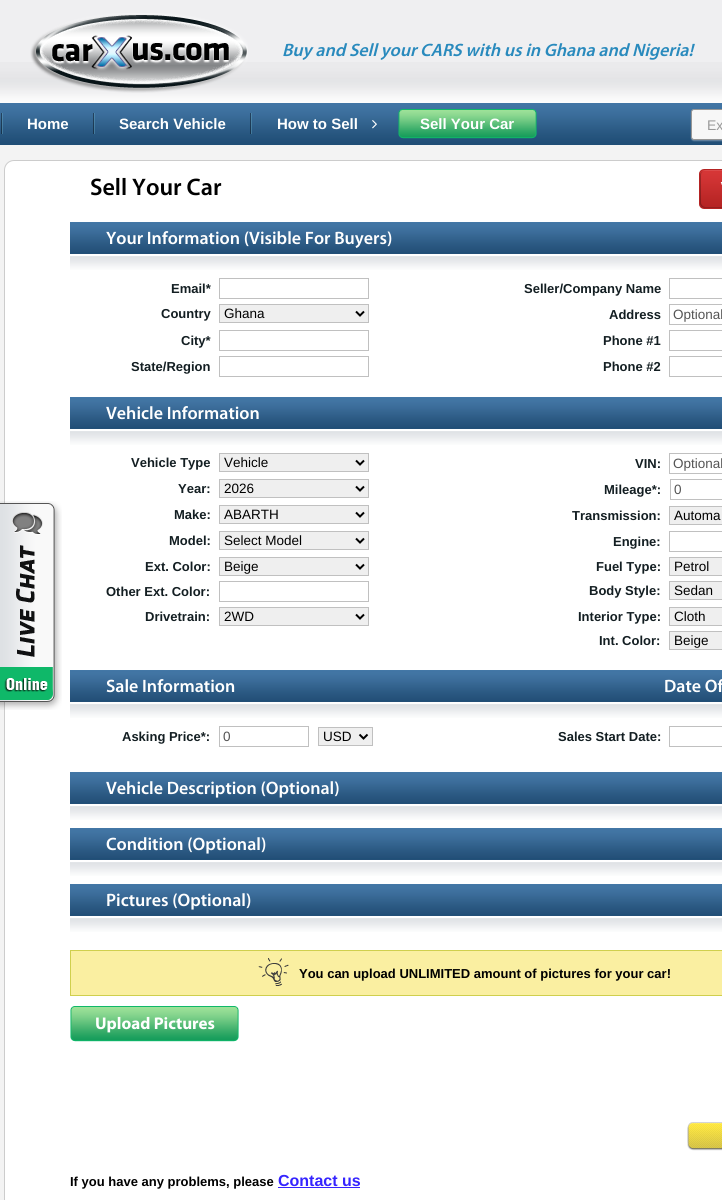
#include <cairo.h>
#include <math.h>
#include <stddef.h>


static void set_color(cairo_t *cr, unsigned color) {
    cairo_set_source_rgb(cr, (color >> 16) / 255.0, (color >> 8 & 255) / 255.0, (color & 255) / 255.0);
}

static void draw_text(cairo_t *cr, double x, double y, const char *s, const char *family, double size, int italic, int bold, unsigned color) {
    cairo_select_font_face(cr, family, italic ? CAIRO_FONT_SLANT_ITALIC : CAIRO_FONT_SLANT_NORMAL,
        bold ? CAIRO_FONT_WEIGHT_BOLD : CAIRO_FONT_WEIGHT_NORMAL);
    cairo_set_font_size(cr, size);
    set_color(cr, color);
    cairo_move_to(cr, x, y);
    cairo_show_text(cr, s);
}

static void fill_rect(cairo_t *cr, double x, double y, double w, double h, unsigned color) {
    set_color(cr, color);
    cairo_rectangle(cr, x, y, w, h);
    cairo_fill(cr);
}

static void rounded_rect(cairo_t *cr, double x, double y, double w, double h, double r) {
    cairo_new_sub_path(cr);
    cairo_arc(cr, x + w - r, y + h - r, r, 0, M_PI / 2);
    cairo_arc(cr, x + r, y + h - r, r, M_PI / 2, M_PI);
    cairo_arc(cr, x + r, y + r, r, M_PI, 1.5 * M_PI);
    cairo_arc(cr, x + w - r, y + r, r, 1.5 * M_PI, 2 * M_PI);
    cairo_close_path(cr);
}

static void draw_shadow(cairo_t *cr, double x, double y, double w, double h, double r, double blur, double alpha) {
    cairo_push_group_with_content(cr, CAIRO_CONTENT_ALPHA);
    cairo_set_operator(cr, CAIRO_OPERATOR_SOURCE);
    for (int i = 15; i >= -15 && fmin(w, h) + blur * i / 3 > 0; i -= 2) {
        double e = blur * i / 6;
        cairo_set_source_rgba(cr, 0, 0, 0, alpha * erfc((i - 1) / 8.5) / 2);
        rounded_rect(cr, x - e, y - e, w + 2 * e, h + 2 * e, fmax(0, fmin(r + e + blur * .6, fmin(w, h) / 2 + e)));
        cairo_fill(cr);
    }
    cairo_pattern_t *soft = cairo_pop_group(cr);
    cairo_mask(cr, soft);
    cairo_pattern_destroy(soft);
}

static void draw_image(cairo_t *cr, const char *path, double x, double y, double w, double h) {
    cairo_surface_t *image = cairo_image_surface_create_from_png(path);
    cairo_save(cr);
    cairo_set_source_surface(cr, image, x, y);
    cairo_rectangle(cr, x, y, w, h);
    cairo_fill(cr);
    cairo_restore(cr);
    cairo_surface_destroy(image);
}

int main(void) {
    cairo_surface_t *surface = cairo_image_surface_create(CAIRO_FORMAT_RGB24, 722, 1200);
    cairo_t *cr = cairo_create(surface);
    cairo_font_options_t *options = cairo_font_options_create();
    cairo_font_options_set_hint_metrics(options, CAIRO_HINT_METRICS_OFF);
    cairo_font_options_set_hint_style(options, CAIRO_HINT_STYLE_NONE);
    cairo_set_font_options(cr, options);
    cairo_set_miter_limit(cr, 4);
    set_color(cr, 0xF3F3F3);
    cairo_paint(cr);
    fill_rect(cr, 0, 0, 722, 62, 0xEFEFF1);
    draw_image(cr, "assets/img1.png", 0, 62, 722, 41);
    draw_image(cr, "assets/img2.png", 30, 13, 218, 80);
    draw_text(cr, 282, 56, "Buy and Sell your CARS with us in Ghana and Nigeria!", "Myriad SemiBold", 18, 1, 0, 0x298ABD);
    draw_image(cr, "assets/img3.png", 0, 103, 722, 42);
    draw_image(cr, "assets/img4.png", 1, 113, 2, 21);
    draw_text(cr, 27, 129, "Home", "Liberation Sans", 15, 0, 1, 0xFFFFFF);
    draw_image(cr, "assets/img4.png", 93, 113, 2, 21);
    draw_text(cr, 119, 129, "Search Vehicle", "Liberation Sans", 15, 0, 1, 0xFFFFFF);
    draw_image(cr, "assets/img4.png", 250, 113, 2, 21);
    draw_text(cr, 277, 129, "How to Sell", "Liberation Sans", 15, 0, 1, 0xFFFFFF);
    draw_image(cr, "assets/img5.png", 372, 120, 5, 9);
    draw_image(cr, "assets/img6.png", 398, 109, 139, 30);
    draw_text(cr, 420, 129, "Sell Your Car", "Liberation Sans", 15, 0, 1, 0xFFFFFF);
    set_color(cr, 0x7D97AE);
    draw_shadow(cr, 691, 110, 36, 31, 3, 0.5, 0.75);
    set_color(cr, 0xF7F7F7);
    rounded_rect(cr, 691.5, 109.5, 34, 30, 2.5);
    cairo_fill_preserve(cr);
    set_color(cr, 0x969696);
    cairo_set_line_width(cr, 1);
    cairo_stroke(cr);
    draw_text(cr, 707, 130, "Ex", "Liberation Sans", 14, 0, 0, 0x999999);
    set_color(cr, 0xFFFFFF);
    rounded_rect(cr, 4.5, 160.5, 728, 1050, 9.5);
    cairo_fill_preserve(cr);
    set_color(cr, 0xCCCCCC);
    cairo_stroke(cr);
    draw_text(cr, 90, 195, "Sell Your Car", "Myriad SemiBold", 24, 0, 0, 0x000000);
    draw_image(cr, "assets/img7.png", 699, 169, 23, 40);
    draw_image(cr, "assets/img8.png", 70, 222, 652, 48);
    draw_text(cr, 106, 244, "Your Information (Visible For Buyers)", "Myriad SemiBold", 18, 0, 0, 0xFFFFFF);
    draw_text(cr, 171, 293, "Email*", "Liberation Sans", 13, 0, 1, 0x131E22);
    cairo_rectangle(cr, 219.5, 278.5, 149, 20);
    set_color(cr, 0xC0C0C0);
    cairo_stroke(cr);
    draw_text(cr, 524, 293, "Seller/Company Name", "Liberation Sans", 13, 0, 1, 0x131E22);
    cairo_rectangle(cr, 669.5, 278.5, 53, 20);
    set_color(cr, 0xC0C0C0);
    cairo_stroke(cr);
    draw_text(cr, 161, 318, "Country", "Liberation Sans", 13, 0, 1, 0x131E22);
    set_color(cr, 0xEFEFEF);
    cairo_rectangle(cr, 219.5, 304.5, 149, 18);
    cairo_fill_preserve(cr);
    set_color(cr, 0xC0C0C0);
    cairo_stroke(cr);
    cairo_new_path(cr);
    cairo_move_to(cr, 356, 311.5);
    cairo_line_to(cr, 360, 315.5);
    cairo_line_to(cr, 364, 311.5);
    set_color(cr, 0x000000);
    cairo_set_line_width(cr, 2);
    cairo_stroke(cr);
    draw_text(cr, 224, 318, "Ghana", "Liberation Sans", 13.5, 0, 0, 0x000000);
    draw_text(cr, 609, 319, "Address", "Liberation Sans", 13, 0, 1, 0x131E22);
    cairo_rectangle(cr, 669.5, 304.5, 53, 20);
    set_color(cr, 0xC0C0C0);
    cairo_set_line_width(cr, 1);
    cairo_stroke(cr);
    draw_text(cr, 673, 319, "Optional", "Liberation Sans", 13.5, 0, 0, 0x545454);
    draw_text(cr, 181, 345, "City*", "Liberation Sans", 13, 0, 1, 0x131E22);
    cairo_rectangle(cr, 219.5, 330.5, 149, 20);
    set_color(cr, 0xC0C0C0);
    cairo_stroke(cr);
    draw_text(cr, 603, 345, "Phone #1", "Liberation Sans", 13, 0, 1, 0x131E22);
    cairo_rectangle(cr, 669.5, 330.5, 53, 20);
    set_color(cr, 0xC0C0C0);
    cairo_stroke(cr);
    draw_text(cr, 131, 371, "State/Region", "Liberation Sans", 13, 0, 1, 0x131E22);
    cairo_rectangle(cr, 219.5, 356.5, 149, 20);
    set_color(cr, 0xC0C0C0);
    cairo_stroke(cr);
    draw_text(cr, 603, 371, "Phone #2", "Liberation Sans", 13, 0, 1, 0x131E22);
    cairo_rectangle(cr, 669.5, 356.5, 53, 20);
    set_color(cr, 0xC0C0C0);
    cairo_stroke(cr);
    draw_image(cr, "assets/img8.png", 70, 397, 652, 48);
    draw_text(cr, 106, 419, "Vehicle Information", "Myriad SemiBold", 18, 0, 0, 0xFFFFFF);
    draw_text(cr, 131, 467, "Vehicle Type", "Liberation Sans", 13, 0, 1, 0x131E22);
    set_color(cr, 0xEFEFEF);
    cairo_rectangle(cr, 219.5, 453.5, 149, 18);
    cairo_fill_preserve(cr);
    set_color(cr, 0xC0C0C0);
    cairo_stroke(cr);
    cairo_new_path(cr);
    cairo_move_to(cr, 356, 460.5);
    cairo_line_to(cr, 360, 464.5);
    cairo_line_to(cr, 364, 460.5);
    set_color(cr, 0x000000);
    cairo_set_line_width(cr, 2);
    cairo_stroke(cr);
    draw_text(cr, 224, 467, "Vehicle", "Liberation Sans", 13.5, 0, 0, 0x000000);
    draw_text(cr, 635, 468, "VIN:", "Liberation Sans", 13, 0, 1, 0x131E22);
    cairo_rectangle(cr, 669.5, 453.5, 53, 20);
    set_color(cr, 0xC0C0C0);
    cairo_set_line_width(cr, 1);
    cairo_stroke(cr);
    draw_text(cr, 673, 468, "Optional", "Liberation Sans", 13.5, 0, 0, 0x545454);
    draw_text(cr, 178, 493, "Year:", "Liberation Sans", 13, 0, 1, 0x131E22);
    set_color(cr, 0xEFEFEF);
    cairo_rectangle(cr, 219.5, 479.5, 149, 18);
    cairo_fill_preserve(cr);
    set_color(cr, 0xC0C0C0);
    cairo_stroke(cr);
    cairo_new_path(cr);
    cairo_move_to(cr, 356, 486.5);
    cairo_line_to(cr, 360, 490.5);
    cairo_line_to(cr, 364, 486.5);
    set_color(cr, 0x000000);
    cairo_set_line_width(cr, 2);
    cairo_stroke(cr);
    draw_text(cr, 224, 493, "2026", "Liberation Sans", 13.5, 0, 0, 0x000000);
    draw_text(cr, 604, 494, "Mileage*:", "Liberation Sans", 13, 0, 1, 0x131E22);
    cairo_rectangle(cr, 670.5, 479.5, 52, 20);
    set_color(cr, 0xC0C0C0);
    cairo_set_line_width(cr, 1);
    cairo_stroke(cr);
    draw_text(cr, 674, 494, "0", "Liberation Sans", 13.5, 0, 0, 0x545454);
    draw_text(cr, 174, 519, "Make:", "Liberation Sans", 13, 0, 1, 0x131E22);
    set_color(cr, 0xEFEFEF);
    cairo_rectangle(cr, 219.5, 505.5, 149, 18);
    cairo_fill_preserve(cr);
    set_color(cr, 0xC0C0C0);
    cairo_stroke(cr);
    cairo_new_path(cr);
    cairo_move_to(cr, 356, 512.5);
    cairo_line_to(cr, 360, 516.5);
    cairo_line_to(cr, 364, 512.5);
    set_color(cr, 0x000000);
    cairo_set_line_width(cr, 2);
    cairo_stroke(cr);
    draw_text(cr, 224, 519, "ABARTH", "Liberation Sans", 13.5, 0, 0, 0x000000);
    draw_text(cr, 572, 520, "Transmission:", "Liberation Sans", 13, 0, 1, 0x131E22);
    set_color(cr, 0xEFEFEF);
    cairo_rectangle(cr, 669.5, 506.5, 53, 18);
    cairo_fill_preserve(cr);
    set_color(cr, 0xC0C0C0);
    cairo_set_line_width(cr, 1);
    cairo_stroke(cr);
    draw_text(cr, 674, 520, "Automa", "Liberation Sans", 13.5, 0, 0, 0x000000);
    draw_text(cr, 169, 545, "Model:", "Liberation Sans", 13, 0, 1, 0x131E22);
    set_color(cr, 0xEFEFEF);
    cairo_rectangle(cr, 219.5, 531.5, 149, 18);
    cairo_fill_preserve(cr);
    set_color(cr, 0xC0C0C0);
    cairo_stroke(cr);
    cairo_new_path(cr);
    cairo_move_to(cr, 356, 538.5);
    cairo_line_to(cr, 360, 542.5);
    cairo_line_to(cr, 364, 538.5);
    set_color(cr, 0x000000);
    cairo_set_line_width(cr, 2);
    cairo_stroke(cr);
    draw_text(cr, 224, 545, "Select Model", "Liberation Sans", 13.5, 0, 0, 0x000000);
    draw_text(cr, 613, 546, "Engine:", "Liberation Sans", 13, 0, 1, 0x131E22);
    cairo_rectangle(cr, 669.5, 531.5, 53, 20);
    set_color(cr, 0xC0C0C0);
    cairo_set_line_width(cr, 1);
    cairo_stroke(cr);
    draw_text(cr, 145, 571, "Ext. Color:", "Liberation Sans", 13, 0, 1, 0x131E22);
    set_color(cr, 0xEFEFEF);
    cairo_rectangle(cr, 219.5, 557.5, 149, 18);
    cairo_fill_preserve(cr);
    set_color(cr, 0xC0C0C0);
    cairo_stroke(cr);
    cairo_new_path(cr);
    cairo_move_to(cr, 356, 564.5);
    cairo_line_to(cr, 360, 568.5);
    cairo_line_to(cr, 364, 564.5);
    set_color(cr, 0x000000);
    cairo_set_line_width(cr, 2);
    cairo_stroke(cr);
    draw_text(cr, 224, 571, "Beige", "Liberation Sans", 13.5, 0, 0, 0x000000);
    draw_text(cr, 596, 571, "Fuel Type:", "Liberation Sans", 13, 0, 1, 0x131E22);
    set_color(cr, 0xEFEFEF);
    cairo_rectangle(cr, 669.5, 557.5, 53, 18);
    cairo_fill_preserve(cr);
    set_color(cr, 0xC0C0C0);
    cairo_set_line_width(cr, 1);
    cairo_stroke(cr);
    draw_text(cr, 674, 571, "Petrol", "Liberation Sans", 13.5, 0, 0, 0x000000);
    draw_text(cr, 106, 596, "Other Ext. Color:", "Liberation Sans", 13, 0, 1, 0x131E22);
    cairo_rectangle(cr, 219.5, 581.5, 149, 20);
    set_color(cr, 0xC0C0C0);
    cairo_stroke(cr);
    draw_text(cr, 589, 595, "Body Style:", "Liberation Sans", 13, 0, 1, 0x131E22);
    set_color(cr, 0xEFEFEF);
    cairo_rectangle(cr, 669.5, 581.5, 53, 18);
    cairo_fill_preserve(cr);
    set_color(cr, 0xC0C0C0);
    cairo_stroke(cr);
    draw_text(cr, 674, 595, "Sedan", "Liberation Sans", 13.5, 0, 0, 0x000000);
    draw_text(cr, 145, 621, "Drivetrain:", "Liberation Sans", 13, 0, 1, 0x131E22);
    set_color(cr, 0xEFEFEF);
    cairo_rectangle(cr, 219.5, 607.5, 149, 18);
    cairo_fill_preserve(cr);
    set_color(cr, 0xC0C0C0);
    cairo_stroke(cr);
    cairo_new_path(cr);
    cairo_move_to(cr, 356, 614.5);
    cairo_line_to(cr, 360, 618.5);
    cairo_line_to(cr, 364, 614.5);
    set_color(cr, 0x000000);
    cairo_set_line_width(cr, 2);
    cairo_stroke(cr);
    draw_text(cr, 224, 621, "2WD", "Liberation Sans", 13.5, 0, 0, 0x000000);
    draw_text(cr, 578, 621, "Interior Type:", "Liberation Sans", 13, 0, 1, 0x131E22);
    set_color(cr, 0xEFEFEF);
    cairo_rectangle(cr, 669.5, 607.5, 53, 18);
    cairo_fill_preserve(cr);
    set_color(cr, 0xC0C0C0);
    cairo_set_line_width(cr, 1);
    cairo_stroke(cr);
    draw_text(cr, 674, 621, "Cloth", "Liberation Sans", 13.5, 0, 0, 0x000000);
    draw_text(cr, 599, 645, "Int. Color:", "Liberation Sans", 13, 0, 1, 0x131E22);
    set_color(cr, 0xEFEFEF);
    cairo_rectangle(cr, 669.5, 631.5, 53, 18);
    cairo_fill_preserve(cr);
    set_color(cr, 0xC0C0C0);
    cairo_stroke(cr);
    draw_text(cr, 674, 645, "Beige", "Liberation Sans", 13.5, 0, 0, 0x000000);
    draw_image(cr, "assets/img8.png", 70, 670, 652, 48);
    draw_text(cr, 106, 692, "Sale Information", "Myriad SemiBold", 18, 0, 0, 0xFFFFFF);
    draw_text(cr, 664, 692, "Date Of", "Myriad SemiBold", 18, 0, 0, 0xFFFFFF);
    draw_text(cr, 122, 741, "Asking Price*:", "Liberation Sans", 13, 0, 1, 0x131E22);
    cairo_rectangle(cr, 219.5, 726.5, 89, 20);
    set_color(cr, 0xC0C0C0);
    cairo_stroke(cr);
    draw_text(cr, 223, 741, "0", "Liberation Sans", 13.5, 0, 0, 0x545454);
    set_color(cr, 0xEFEFEF);
    cairo_rectangle(cr, 318.5, 727.5, 54, 18);
    cairo_fill_preserve(cr);
    set_color(cr, 0xC0C0C0);
    cairo_stroke(cr);
    cairo_new_path(cr);
    cairo_move_to(cr, 359.5, 734.5);
    cairo_line_to(cr, 363.5, 738.5);
    cairo_line_to(cr, 367.5, 734.5);
    set_color(cr, 0x000000);
    cairo_set_line_width(cr, 2);
    cairo_stroke(cr);
    draw_text(cr, 323, 741, "USD", "Liberation Sans", 13.5, 0, 0, 0x000000);
    draw_text(cr, 558, 741, "Sales Start Date:", "Liberation Sans", 13, 0, 1, 0x131E22);
    cairo_rectangle(cr, 669.5, 726.5, 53, 20);
    set_color(cr, 0xC0C0C0);
    cairo_set_line_width(cr, 1);
    cairo_stroke(cr);
    draw_image(cr, "assets/img8.png", 70, 772, 652, 48);
    draw_text(cr, 106, 794, "Vehicle Description (Optional)", "Myriad SemiBold", 18, 0, 0, 0xFFFFFF);
    draw_image(cr, "assets/img8.png", 70, 828, 652, 48);
    draw_text(cr, 106, 850, "Condition (Optional)", "Myriad SemiBold", 18, 0, 0, 0xFFFFFF);
    draw_image(cr, "assets/img8.png", 70, 884, 652, 48);
    draw_text(cr, 106, 906, "Pictures (Optional)", "Myriad SemiBold", 18, 0, 0, 0xFFFFFF);
    set_color(cr, 0xFAEFA1);
    cairo_rectangle(cr, 70.5, 950.5, 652, 45);
    cairo_fill_preserve(cr);
    set_color(cr, 0xCFCF4D);
    cairo_stroke(cr);
    draw_image(cr, "assets/img9.png", 258, 958, 31, 28);
    draw_text(cr, 299, 978, "You can upload UNLIMITED amount of pictures for your car!", "Liberation Sans", 13, 0, 1, 0x000000);
    draw_image(cr, "assets/img10.png", 70, 1006, 169, 36);
    draw_text(cr, 95, 1029, "Upload Pictures", "Myriad", 17, 0, 1, 0xFFFFFF);
    draw_image(cr, "assets/img11.png", 687, 1122, 35, 29);
    draw_text(cr, 70, 1186, "If you have any problems, please", "Liberation Sans", 13, 0, 1, 0x000000);
    draw_text(cr, 278, 1186, "Contact us", "Liberation Sans", 16, 0, 1, 0x3524FF);
    fill_rect(cr, 278, 1187, 82, 1, 0x3524FF);
    draw_image(cr, "assets/img12.png", 0, 501, 62, 209);
    cairo_surface_write_to_png(surface, "output.png");
    cairo_font_options_destroy(options);
    cairo_destroy(cr);
    cairo_surface_destroy(surface);
    return 0;
}
